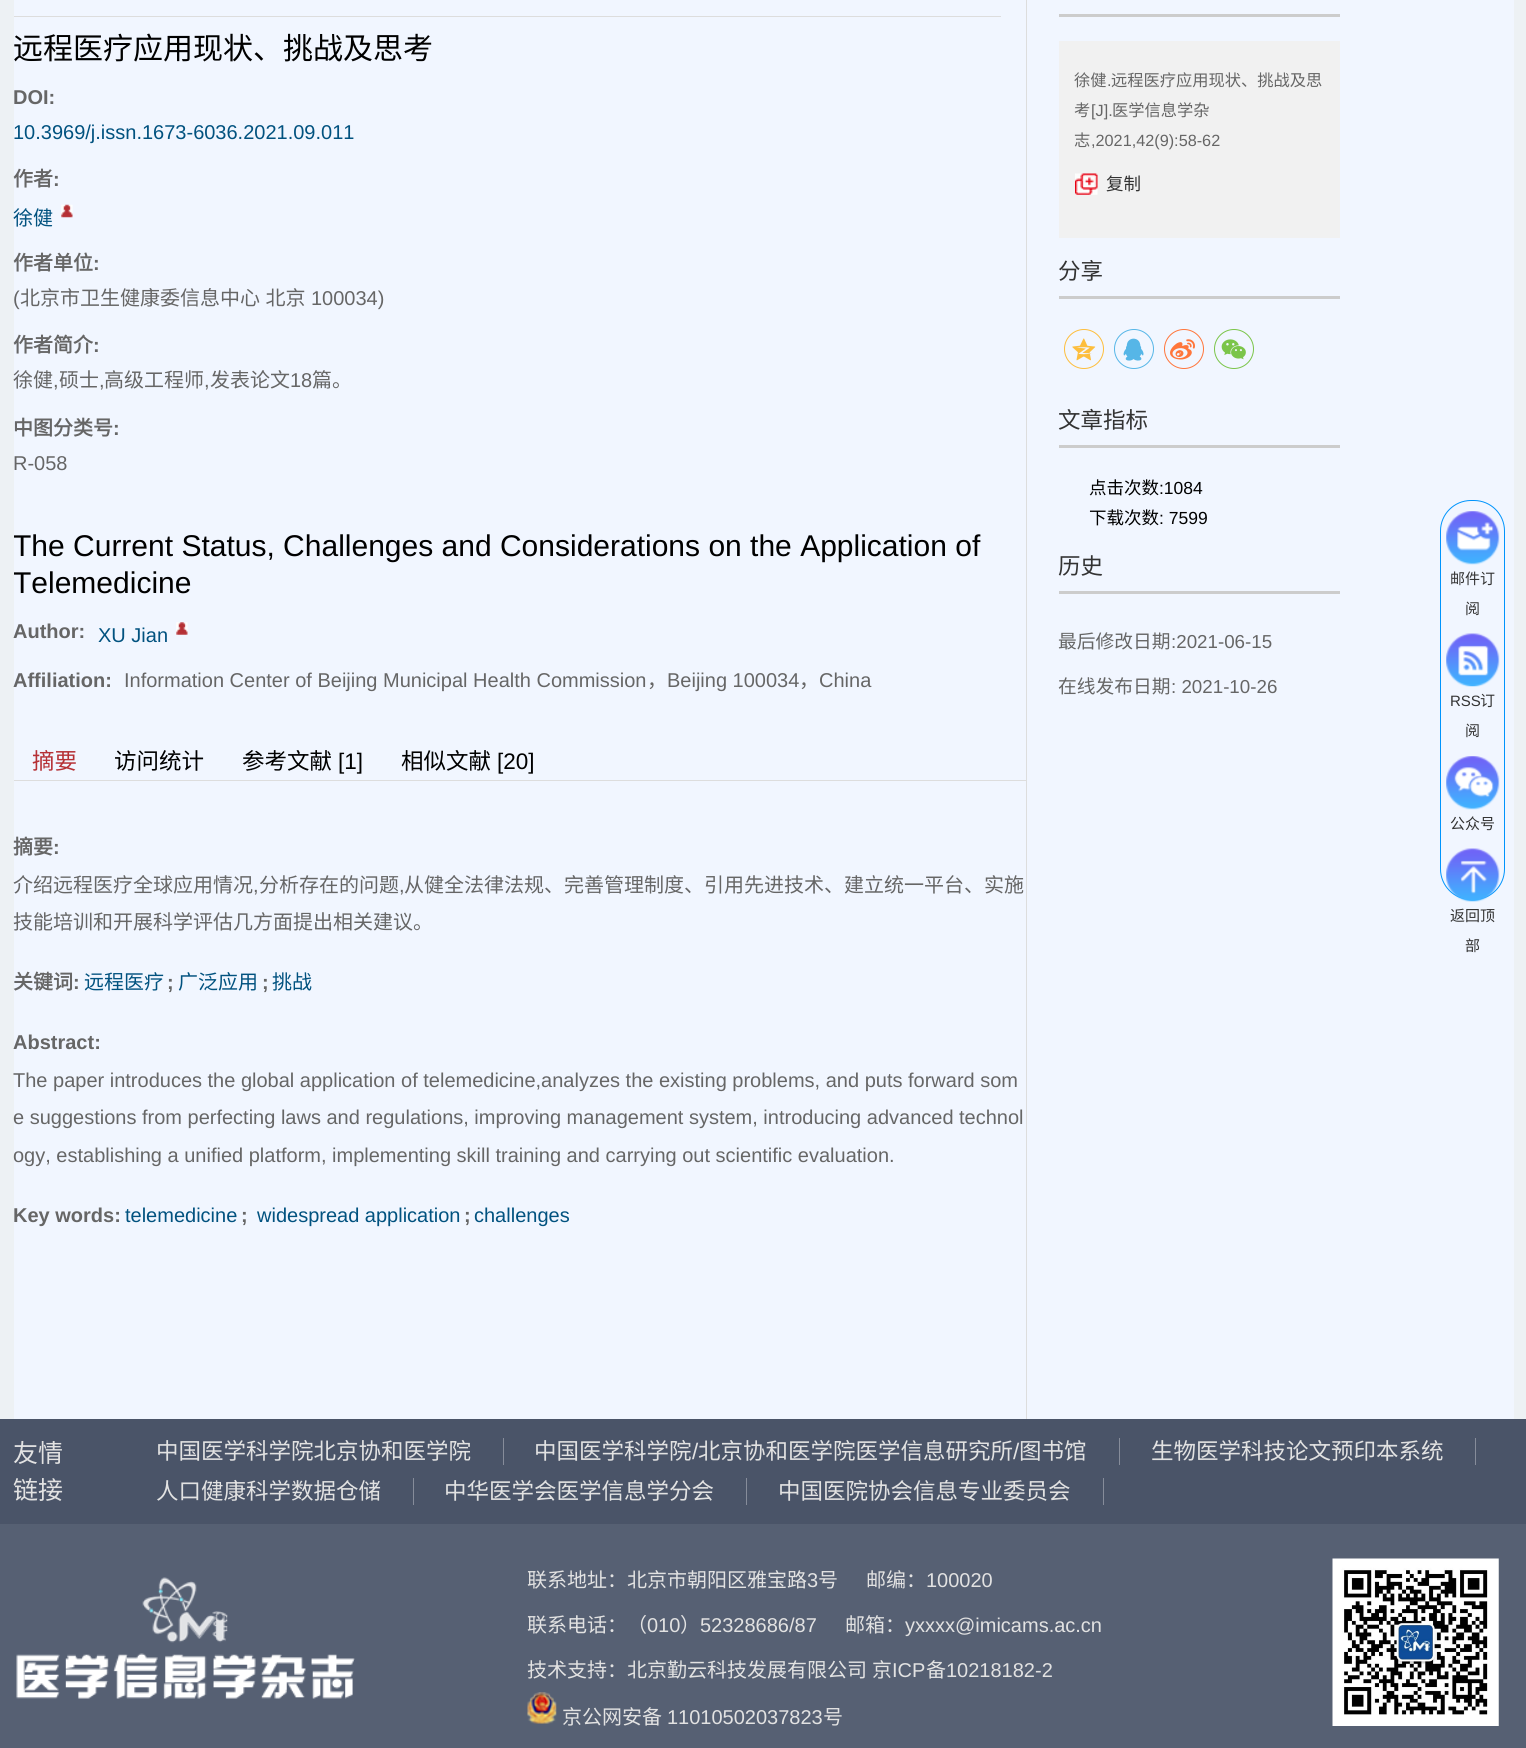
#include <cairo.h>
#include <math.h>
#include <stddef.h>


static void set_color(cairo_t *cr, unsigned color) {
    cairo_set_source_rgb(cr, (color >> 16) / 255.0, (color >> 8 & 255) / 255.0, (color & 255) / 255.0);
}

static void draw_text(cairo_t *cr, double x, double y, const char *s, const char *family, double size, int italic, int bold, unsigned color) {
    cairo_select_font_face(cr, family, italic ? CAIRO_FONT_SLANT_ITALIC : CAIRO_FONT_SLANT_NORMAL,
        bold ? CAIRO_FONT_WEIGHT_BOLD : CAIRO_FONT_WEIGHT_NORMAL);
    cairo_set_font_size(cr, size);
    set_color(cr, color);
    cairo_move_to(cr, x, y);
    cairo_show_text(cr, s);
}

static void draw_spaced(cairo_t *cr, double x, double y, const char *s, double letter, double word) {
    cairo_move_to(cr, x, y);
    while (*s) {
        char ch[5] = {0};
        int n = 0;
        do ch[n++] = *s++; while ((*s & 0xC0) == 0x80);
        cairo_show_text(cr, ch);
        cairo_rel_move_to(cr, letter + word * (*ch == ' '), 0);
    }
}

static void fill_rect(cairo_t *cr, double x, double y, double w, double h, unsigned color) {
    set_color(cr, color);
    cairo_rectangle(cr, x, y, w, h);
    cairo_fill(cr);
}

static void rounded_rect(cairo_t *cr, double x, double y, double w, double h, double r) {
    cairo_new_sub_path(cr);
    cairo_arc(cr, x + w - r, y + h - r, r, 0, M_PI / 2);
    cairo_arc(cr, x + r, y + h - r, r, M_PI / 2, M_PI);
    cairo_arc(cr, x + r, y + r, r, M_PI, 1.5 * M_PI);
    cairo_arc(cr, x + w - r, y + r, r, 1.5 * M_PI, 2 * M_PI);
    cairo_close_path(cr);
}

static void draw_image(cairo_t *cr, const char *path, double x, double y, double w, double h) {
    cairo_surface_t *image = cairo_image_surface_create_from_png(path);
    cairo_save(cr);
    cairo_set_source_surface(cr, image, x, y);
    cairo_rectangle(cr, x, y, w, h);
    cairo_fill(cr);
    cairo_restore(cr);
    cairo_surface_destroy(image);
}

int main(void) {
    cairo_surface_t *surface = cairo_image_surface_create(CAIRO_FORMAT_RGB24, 1526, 1748);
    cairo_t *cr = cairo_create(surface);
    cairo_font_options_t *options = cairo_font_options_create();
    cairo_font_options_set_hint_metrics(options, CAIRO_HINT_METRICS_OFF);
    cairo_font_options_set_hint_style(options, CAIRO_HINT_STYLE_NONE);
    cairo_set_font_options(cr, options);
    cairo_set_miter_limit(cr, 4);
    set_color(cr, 0xEDF1F4);
    cairo_paint(cr);
    fill_rect(cr, 14, 0, 1500, 1419, 0xF1F6FF);
    fill_rect(cr, 14, 16, 987, 1, 0xDDDDDD);
    draw_text(cr, 13, 59, "远程医疗应用现状、挑战及思考", "Noto Sans CJK SC", 30, 0, 0, 0x000000);
    draw_text(cr, 13, 104, "DOI:", "Liberation Sans", 20, 0, 1, 0x666666);
    draw_text(cr, 13, 139, "10.3969/j.issn.1673-6036.2021.09.011", "Liberation Sans", 20, 0, 0, 0x01527F);
    draw_text(cr, 13, 186, "作者", "Noto Sans CJK SC", 20, 0, 1, 0x666666);
    draw_text(cr, 53, 186, ":", "Liberation Sans", 20, 0, 1, 0x666666);
    draw_text(cr, 13, 225, "徐健", "Noto Sans CJK SC", 20, 0, 0, 0x01527F);
    draw_image(cr, "assets/img1.png", 61, 204, 12, 14);
    draw_text(cr, 13, 270, "作者单位", "Noto Sans CJK SC", 20, 0, 1, 0x666666);
    draw_text(cr, 93, 270, ":", "Liberation Sans", 20, 0, 1, 0x666666);
    draw_text(cr, 13, 305, "(", "Liberation Sans", 20, 0, 0, 0x666666);
    cairo_select_font_face(cr, "Noto Sans CJK SC", CAIRO_FONT_SLANT_NORMAL, CAIRO_FONT_WEIGHT_NORMAL);
    draw_spaced(cr, 20, 305, "北京市卫生健康委信息中心 北京", 0, 1);
    draw_text(cr, 311, 305, "100034)", "Liberation Sans", 20, 0, 0, 0x666666);
    draw_text(cr, 13, 352, "作者简介", "Noto Sans CJK SC", 20, 0, 1, 0x666666);
    draw_text(cr, 93, 352, ":", "Liberation Sans", 20, 0, 1, 0x666666);
    draw_text(cr, 13, 387, "徐健", "Noto Sans CJK SC", 20, 0, 0, 0x666666);
    draw_text(cr, 53, 387, ",", "Liberation Sans", 20, 0, 0, 0x666666);
    draw_text(cr, 59, 387, "硕士", "Noto Sans CJK SC", 20, 0, 0, 0x666666);
    draw_text(cr, 99, 387, ",", "Liberation Sans", 20, 0, 0, 0x666666);
    draw_text(cr, 104, 387, "高级工程师", "Noto Sans CJK SC", 20, 0, 0, 0x666666);
    draw_text(cr, 204, 387, ",", "Liberation Sans", 20, 0, 0, 0x666666);
    draw_text(cr, 210, 387, "发表论文", "Noto Sans CJK SC", 20, 0, 0, 0x666666);
    draw_text(cr, 290, 387, "18", "Liberation Sans", 20, 0, 0, 0x666666);
    draw_text(cr, 312, 387, "篇。", "Noto Sans CJK SC", 20, 0, 0, 0x666666);
    draw_text(cr, 13, 435, "中图分类号", "Noto Sans CJK SC", 20, 0, 1, 0x666666);
    draw_text(cr, 113, 435, ":", "Liberation Sans", 20, 0, 1, 0x666666);
    draw_text(cr, 13, 470, "R-058", "Liberation Sans", 20, 0, 0, 0x666666);
    cairo_save(cr);
    cairo_rectangle(cr, 14, 0, 1500, 1419);
    cairo_clip(cr);
    draw_text(cr, 13, 556, "The Current Status, Challenges and Considerations on the Application of", "Liberation Sans", 30, 0, 0, 0x000000);
    draw_text(cr, 13, 593, "Telemedicine", "Liberation Sans", 30, 0, 0, 0x000000);
    cairo_restore(cr);
    draw_text(cr, 13, 638, "Author:", "Liberation Sans", 20, 0, 1, 0x666666);
    draw_text(cr, 98, 642, "XU Jian", "Liberation Sans", 20, 0, 0, 0x01527F);
    draw_image(cr, "assets/img2.png", 176, 622, 12, 13);
    draw_text(cr, 13, 687, "Affiliation:", "Liberation Sans", 20, 0, 1, 0x666666);
    draw_text(cr, 124, 687, "Information Center of Beijing Municipal Health Commission", "Liberation Sans", 20, 0, 0, 0x666666);
    draw_text(cr, 647, 687, "，", "Noto Sans CJK SC", 20, 0, 0, 0x666666);
    draw_text(cr, 667, 687, "Beijing 100034", "Liberation Sans", 20, 0, 0, 0x666666);
    draw_text(cr, 799, 687, "，", "Noto Sans CJK SC", 20, 0, 0, 0x666666);
    draw_text(cr, 819, 687, "China", "Liberation Sans", 20, 0, 0, 0x666666);
    fill_rect(cr, 14, 780, 1012, 1, 0xDDDDDD);
    draw_text(cr, 32, 769, "摘要", "Noto Sans CJK SC", 22.5, 0, 0, 0xB53035);
    draw_text(cr, 114, 769, "访问统计", "Noto Sans CJK SC", 22.5, 0, 0, 0x000000);
    draw_text(cr, 242, 769, "参考文献", "Noto Sans CJK SC", 22.5, 0, 0, 0x000000);
    draw_text(cr, 338, 769, "[1]", "Liberation Sans", 22.5, 0, 0, 0x000000);
    draw_text(cr, 401, 769, "相似文献", "Noto Sans CJK SC", 22.5, 0, 0, 0x000000);
    draw_text(cr, 497, 769, "[20]", "Liberation Sans", 22.5, 0, 0, 0x000000);
    draw_text(cr, 13, 854, "摘要", "Noto Sans CJK SC", 20, 0, 1, 0x666666);
    draw_text(cr, 53, 854, ":", "Liberation Sans", 20, 0, 1, 0x666666);
    draw_text(cr, 13, 892, "介绍远程医疗全球应用情况", "Noto Sans CJK SC", 20, 0, 0, 0x666666);
    draw_text(cr, 253, 892, ",", "Liberation Sans", 20, 0, 0, 0x666666);
    draw_text(cr, 259, 892, "分析存在的问题", "Noto Sans CJK SC", 20, 0, 0, 0x666666);
    draw_text(cr, 399, 892, ",", "Liberation Sans", 20, 0, 0, 0x666666);
    draw_text(cr, 404, 892, "从健全法律法规、完善管理制度、引用先进技术、建立统一平台、实施", "Noto Sans CJK SC", 20, 0, 0, 0x666666);
    draw_text(cr, 13, 929, "技能培训和开展科学评估几方面提出相关建议。", "Noto Sans CJK SC", 20, 0, 0, 0x666666);
    draw_text(cr, 13, 989, "关键词", "Noto Sans CJK SC", 20, 0, 1, 0x666666);
    draw_text(cr, 73, 989, ":", "Liberation Sans", 20, 0, 1, 0x666666);
    draw_text(cr, 84, 989, "远程医疗", "Noto Sans CJK SC", 20, 0, 0, 0x01527F);
    draw_text(cr, 167, 989, ";", "Liberation Sans", 20, 0, 1, 0x666666);
    draw_text(cr, 178, 989, "广泛应用", "Noto Sans CJK SC", 20, 0, 0, 0x01527F);
    draw_text(cr, 262, 989, ";", "Liberation Sans", 20, 0, 1, 0x666666);
    draw_text(cr, 272, 989, "挑战", "Noto Sans CJK SC", 20, 0, 0, 0x01527F);
    draw_text(cr, 13, 1049, "Abstract:", "Liberation Sans", 20, 0, 1, 0x666666);
    draw_text(cr, 13, 1087, "The paper introduces the global application of telemedicine,analyzes the existing problems, and puts forward som", "Liberation Sans", 20, 0, 0, 0x666666);
    draw_text(cr, 13, 1124, "e suggestions from perfecting laws and regulations, improving management system, introducing advanced technol", "Liberation Sans", 20, 0, 0, 0x666666);
    draw_text(cr, 13, 1162, "ogy, establishing a unified platform, implementing skill training and carrying out scientific evaluation.", "Liberation Sans", 20, 0, 0, 0x666666);
    draw_text(cr, 13, 1222, "Key words:", "Liberation Sans", 20, 0, 1, 0x666666);
    draw_text(cr, 125, 1222, "telemedicine", "Liberation Sans", 20, 0, 0, 0x01527F);
    draw_text(cr, 241, 1222, ";", "Liberation Sans", 20, 0, 1, 0x666666);
    draw_text(cr, 257, 1222, "widespread application", "Liberation Sans", 20, 0, 0, 0x01527F);
    draw_text(cr, 464, 1222, ";", "Liberation Sans", 20, 0, 1, 0x666666);
    draw_text(cr, 474, 1222, "challenges", "Liberation Sans", 20, 0, 0, 0x01527F);
    fill_rect(cr, 1026, 0, 1, 1419, 0xDDDDDD);
    fill_rect(cr, 1059, 14, 281, 3, 0xCCCCCC);
    fill_rect(cr, 1059, 41, 281, 197, 0xF1F1F1);
    draw_text(cr, 1074, 86, "徐健", "Noto Sans CJK SC", 16.25, 0, 0, 0x666666);
    draw_text(cr, 1107, 86, ".", "Liberation Sans", 16.25, 0, 0, 0x666666);
    draw_text(cr, 1111, 86, "远程医疗应用现状、挑战及思", "Noto Sans CJK SC", 16.25, 0, 0, 0x666666);
    draw_text(cr, 1074, 116, "考", "Noto Sans CJK SC", 16.25, 0, 0, 0x666666);
    draw_text(cr, 1091, 116, "[J].", "Liberation Sans", 16.25, 0, 0, 0x666666);
    draw_text(cr, 1112, 116, "医学信息学杂", "Noto Sans CJK SC", 16.25, 0, 0, 0x666666);
    draw_text(cr, 1074, 146, "志", "Noto Sans CJK SC", 16.25, 0, 0, 0x666666);
    draw_text(cr, 1091, 146, ",2021,42(9):58-62", "Liberation Sans", 16.25, 0, 0, 0x666666);
    draw_image(cr, "assets/img3.png", 1075, 173, 23, 22);
    draw_text(cr, 1106, 190, "复制", "Noto Sans CJK SC", 17.5, 0, 0, 0x333333);
    fill_rect(cr, 1059, 296, 281, 3, 0xCCCCCC);
    draw_text(cr, 1058, 279, "分享", "Noto Sans CJK SC", 22.5, 0, 0, 0x333333);
    cairo_new_path(cr);
    cairo_arc(cr, 1084, 349, 19.5, 0, 2 * M_PI);
    set_color(cr, 0xFDBE3D);
    cairo_set_line_width(cr, 1);
    cairo_stroke(cr);
    draw_image(cr, "assets/img4.png", 1072, 338, 24, 23);
    cairo_arc(cr, 1134, 349, 19.5, 0, 2 * M_PI);
    set_color(cr, 0x56B6E7);
    cairo_stroke(cr);
    draw_image(cr, "assets/img5.png", 1123, 338, 21, 23);
    cairo_arc(cr, 1184, 349, 19.5, 0, 2 * M_PI);
    set_color(cr, 0xFF763B);
    cairo_stroke(cr);
    draw_image(cr, "assets/img6.png", 1170, 339, 25, 21);
    cairo_arc(cr, 1234, 349, 19.5, 0, 2 * M_PI);
    set_color(cr, 0x7BC549);
    cairo_stroke(cr);
    draw_image(cr, "assets/img7.png", 1221, 339, 25, 21);
    fill_rect(cr, 1059, 445, 281, 3, 0xCCCCCC);
    draw_text(cr, 1058, 428, "文章指标", "Noto Sans CJK SC", 22.5, 0, 0, 0x333333);
    draw_text(cr, 1089, 494, "点击次数", "Noto Sans CJK SC", 17.5, 0, 0, 0x000000);
    draw_text(cr, 1159, 494, ":1084", "Liberation Sans", 17.5, 0, 0, 0x000000);
    draw_text(cr, 1089, 524, "下载次数", "Noto Sans CJK SC", 17.5, 0, 0, 0x000000);
    draw_text(cr, 1159, 524, ": 7599", "Liberation Sans", 17.5, 0, 0, 0x000000);
    fill_rect(cr, 1059, 591, 281, 3, 0xCCCCCC);
    draw_text(cr, 1058, 574, "历史", "Noto Sans CJK SC", 22.5, 0, 0, 0x333333);
    draw_text(cr, 1058, 648, "最后修改日期", "Noto Sans CJK SC", 18.75, 0, 0, 0x666666);
    draw_text(cr, 1171, 648, ":2021-06-15", "Liberation Sans", 18.75, 0, 0, 0x666666);
    draw_text(cr, 1058, 693, "在线发布日期", "Noto Sans CJK SC", 18.75, 0, 0, 0x666666);
    draw_text(cr, 1171, 693, ": 2021-10-26", "Liberation Sans", 18.75, 0, 0, 0x666666);
    rounded_rect(cr, 1440.5, 500.5, 64, 399, 30.5);
    set_color(cr, 0x0094FC);
    cairo_stroke(cr);
    draw_image(cr, "assets/img8.png", 1446, 511, 54, 54);
    draw_text(cr, 1450, 584, "邮件订", "Noto Sans CJK SC", 15, 0, 0, 0x333333);
    draw_text(cr, 1465, 614, "阅", "Noto Sans CJK SC", 15, 0, 0, 0x333333);
    draw_image(cr, "assets/img9.png", 1446, 633, 54, 54);
    draw_text(cr, 1450, 706, "RSS", "Liberation Sans", 15, 0, 0, 0x333333);
    draw_text(cr, 1480, 706, "订", "Noto Sans CJK SC", 15, 0, 0, 0x333333);
    draw_text(cr, 1465, 736, "阅", "Noto Sans CJK SC", 15, 0, 0, 0x333333);
    draw_image(cr, "assets/img10.png", 1446, 756, 54, 54);
    draw_text(cr, 1450, 829, "公众号", "Noto Sans CJK SC", 15, 0, 0, 0x333333);
    draw_image(cr, "assets/img11.png", 1446, 848, 54, 54);
    draw_text(cr, 1450, 921, "返回顶", "Noto Sans CJK SC", 15, 0, 0, 0x333333);
    draw_text(cr, 1465, 951, "部", "Noto Sans CJK SC", 15, 0, 0, 0x333333);
    fill_rect(cr, 0, 1524, 1526, 224, 0x566073);
    fill_rect(cr, 0, 1419, 1526, 105, 0x4A5468);
    draw_text(cr, 13, 1462, "友情", "Noto Sans CJK SC", 25, 0, 0, 0xE2E2E2);
    draw_text(cr, 13, 1499, "链接", "Noto Sans CJK SC", 25, 0, 0, 0xE2E2E2);
    fill_rect(cr, 503, 1438, 1, 27, 0x868C9A);
    draw_text(cr, 156, 1459, "中国医学科学院北京协和医学院", "Noto Sans CJK SC", 22.5, 0, 0, 0xE2E2E2);
    fill_rect(cr, 1119, 1438, 1, 27, 0x868C9A);
    draw_text(cr, 534, 1459, "中国医学科学院", "Noto Sans CJK SC", 22.5, 0, 0, 0xE2E2E2);
    draw_text(cr, 692, 1459, "/", "Liberation Sans", 22.5, 0, 0, 0xE2E2E2);
    draw_text(cr, 698, 1459, "北京协和医学院医学信息研究所", "Noto Sans CJK SC", 22.5, 0, 0, 0xE2E2E2);
    draw_text(cr, 1013, 1459, "/", "Liberation Sans", 22.5, 0, 0, 0xE2E2E2);
    draw_text(cr, 1019, 1459, "图书馆", "Noto Sans CJK SC", 22.5, 0, 0, 0xE2E2E2);
    fill_rect(cr, 1475, 1438, 1, 27, 0x868C9A);
    draw_text(cr, 1151, 1459, "生物医学科技论文预印本系统", "Noto Sans CJK SC", 22.5, 0, 0, 0xE2E2E2);
    fill_rect(cr, 413, 1478, 1, 27, 0x868C9A);
    draw_text(cr, 156, 1499, "人口健康科学数据仓储", "Noto Sans CJK SC", 22.5, 0, 0, 0xE2E2E2);
    fill_rect(cr, 746, 1478, 1, 27, 0x868C9A);
    draw_text(cr, 444, 1499, "中华医学会医学信息学分会", "Noto Sans CJK SC", 22.5, 0, 0, 0xE2E2E2);
    fill_rect(cr, 1103, 1478, 1, 27, 0x868C9A);
    draw_text(cr, 778, 1499, "中国医院协会信息专业委员会", "Noto Sans CJK SC", 22.5, 0, 0, 0xE2E2E2);
    draw_image(cr, "assets/img12.png", 16, 1577, 339, 122);
    draw_text(cr, 527, 1587, "联系地址：北京市朝阳区雅宝路", "Noto Sans CJK SC", 20, 0, 0, 0xE2E2E2);
    draw_text(cr, 807, 1587, "3", "Liberation Sans", 20, 0, 0, 0xE2E2E2);
    draw_text(cr, 818, 1587, "号", "Noto Sans CJK SC", 20, 0, 0, 0xE2E2E2);
    draw_text(cr, 866, 1587, "邮编：", "Noto Sans CJK SC", 20, 0, 0, 0xE2E2E2);
    draw_text(cr, 926, 1587, "100020", "Liberation Sans", 20, 0, 0, 0xE2E2E2);
    draw_text(cr, 527, 1632, "联系电话：（", "Noto Sans CJK SC", 20, 0, 0, 0xE2E2E2);
    draw_text(cr, 647, 1632, "010", "Liberation Sans", 20, 0, 0, 0xE2E2E2);
    draw_text(cr, 680, 1632, "）", "Noto Sans CJK SC", 20, 0, 0, 0xE2E2E2);
    draw_text(cr, 700, 1632, "52328686/87", "Liberation Sans", 20, 0, 0, 0xE2E2E2);
    draw_text(cr, 845, 1632, "邮箱：", "Noto Sans CJK SC", 20, 0, 0, 0xE2E2E2);
    draw_text(cr, 905, 1632, "yxxxx@imicams.ac.cn", "Liberation Sans", 20, 0, 0, 0xE2E2E2);
    draw_text(cr, 527, 1677, "技术支持：北京勤云科技发展有限公司", "Noto Sans CJK SC", 20, 0, 0, 0xE2E2E2);
    draw_text(cr, 872, 1677, "京", "Noto Sans CJK SC", 20, 0, 0, 0xE2E2E2);
    draw_text(cr, 892, 1677, "ICP", "Liberation Sans", 20, 0, 0, 0xE2E2E2);
    draw_text(cr, 926, 1677, "备", "Noto Sans CJK SC", 20, 0, 0, 0xE2E2E2);
    draw_text(cr, 946, 1677, "10218182-2", "Liberation Sans", 20, 0, 0, 0xE2E2E2);
    draw_image(cr, "assets/img13.png", 527, 1692, 30, 32);
    draw_text(cr, 562, 1724, "京公网安备", "Noto Sans CJK SC", 20, 0, 0, 0xE2E2E2);
    draw_text(cr, 667, 1724, "11010502037823", "Liberation Sans", 20, 0, 0, 0xE2E2E2);
    draw_text(cr, 823, 1724, "号", "Noto Sans CJK SC", 20, 0, 0, 0xE2E2E2);
    draw_image(cr, "assets/img14.png", 1332, 1558, 167, 168);
    cairo_surface_write_to_png(surface, "output.png");
    cairo_font_options_destroy(options);
    cairo_destroy(cr);
    cairo_surface_destroy(surface);
    return 0;
}
